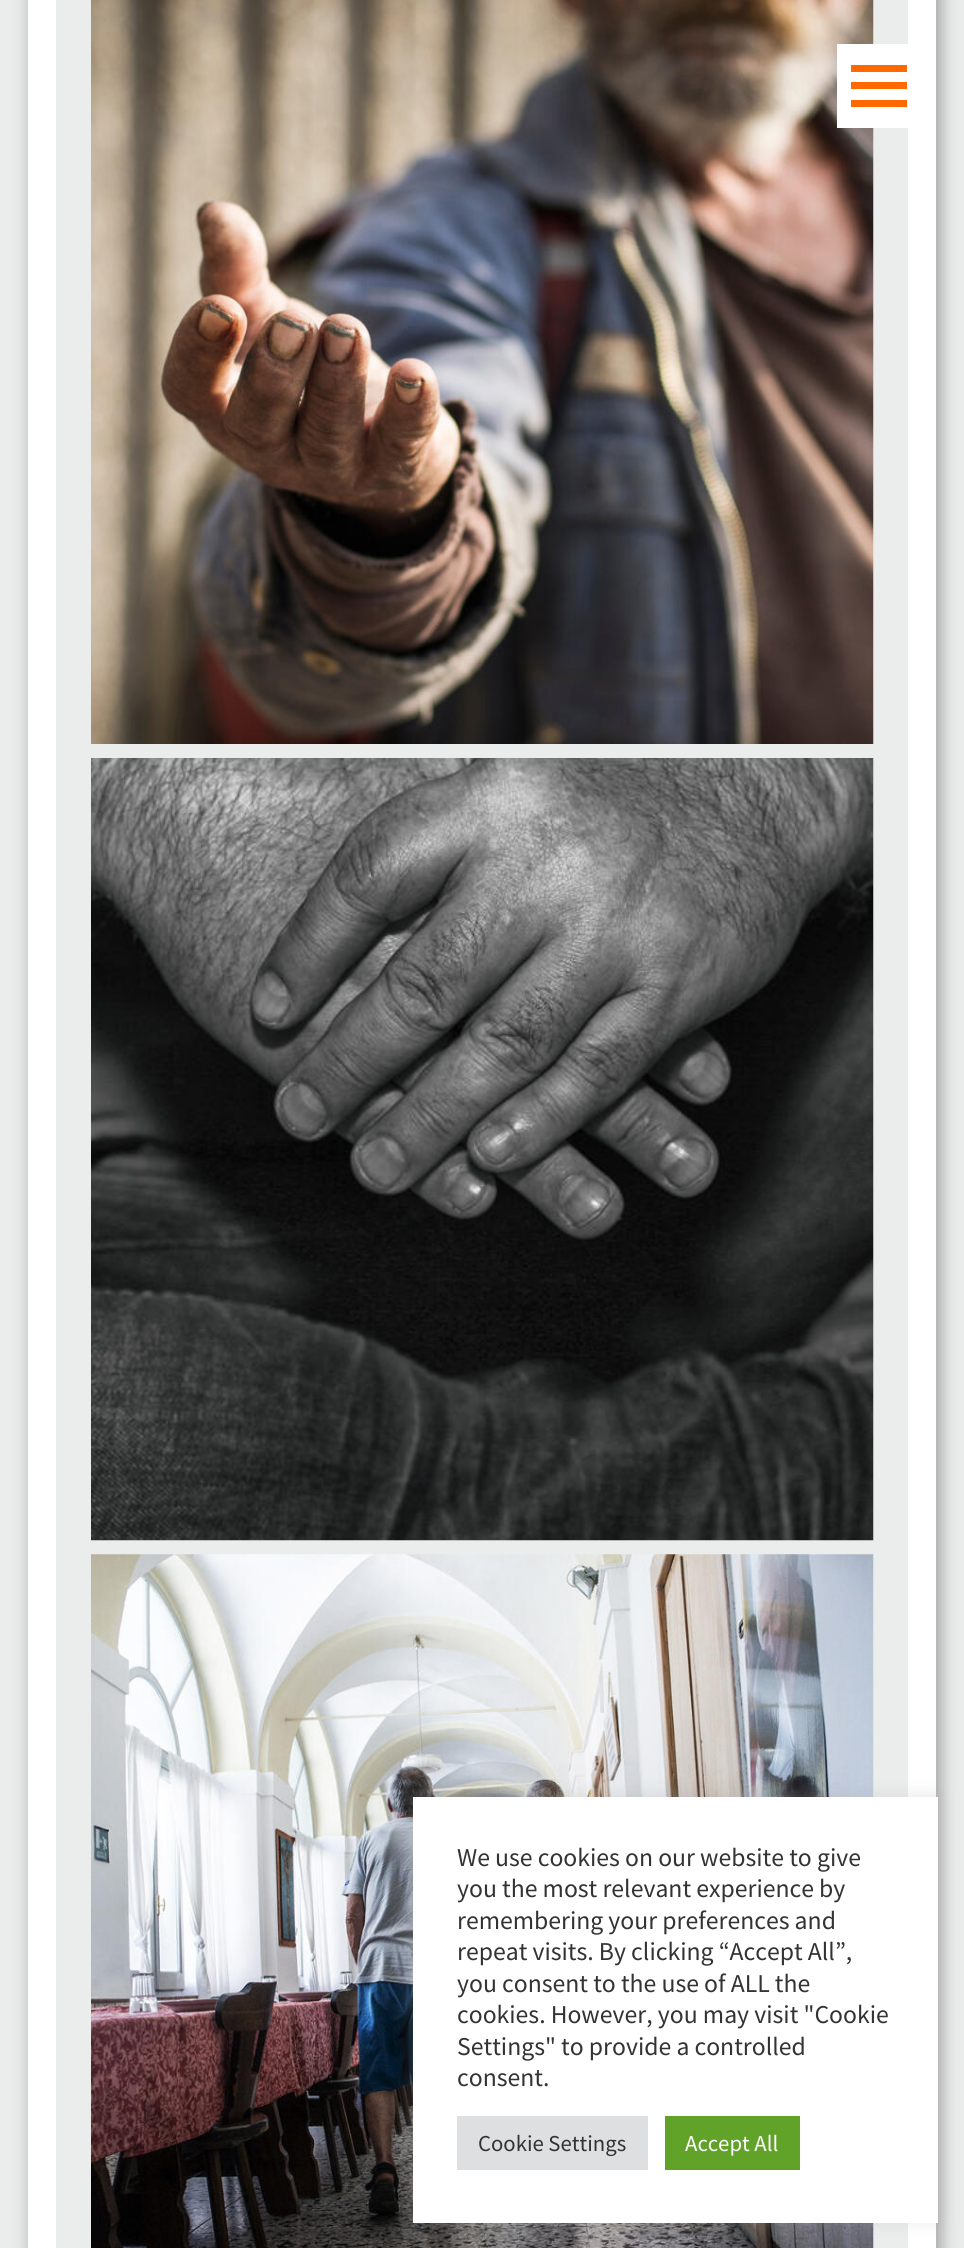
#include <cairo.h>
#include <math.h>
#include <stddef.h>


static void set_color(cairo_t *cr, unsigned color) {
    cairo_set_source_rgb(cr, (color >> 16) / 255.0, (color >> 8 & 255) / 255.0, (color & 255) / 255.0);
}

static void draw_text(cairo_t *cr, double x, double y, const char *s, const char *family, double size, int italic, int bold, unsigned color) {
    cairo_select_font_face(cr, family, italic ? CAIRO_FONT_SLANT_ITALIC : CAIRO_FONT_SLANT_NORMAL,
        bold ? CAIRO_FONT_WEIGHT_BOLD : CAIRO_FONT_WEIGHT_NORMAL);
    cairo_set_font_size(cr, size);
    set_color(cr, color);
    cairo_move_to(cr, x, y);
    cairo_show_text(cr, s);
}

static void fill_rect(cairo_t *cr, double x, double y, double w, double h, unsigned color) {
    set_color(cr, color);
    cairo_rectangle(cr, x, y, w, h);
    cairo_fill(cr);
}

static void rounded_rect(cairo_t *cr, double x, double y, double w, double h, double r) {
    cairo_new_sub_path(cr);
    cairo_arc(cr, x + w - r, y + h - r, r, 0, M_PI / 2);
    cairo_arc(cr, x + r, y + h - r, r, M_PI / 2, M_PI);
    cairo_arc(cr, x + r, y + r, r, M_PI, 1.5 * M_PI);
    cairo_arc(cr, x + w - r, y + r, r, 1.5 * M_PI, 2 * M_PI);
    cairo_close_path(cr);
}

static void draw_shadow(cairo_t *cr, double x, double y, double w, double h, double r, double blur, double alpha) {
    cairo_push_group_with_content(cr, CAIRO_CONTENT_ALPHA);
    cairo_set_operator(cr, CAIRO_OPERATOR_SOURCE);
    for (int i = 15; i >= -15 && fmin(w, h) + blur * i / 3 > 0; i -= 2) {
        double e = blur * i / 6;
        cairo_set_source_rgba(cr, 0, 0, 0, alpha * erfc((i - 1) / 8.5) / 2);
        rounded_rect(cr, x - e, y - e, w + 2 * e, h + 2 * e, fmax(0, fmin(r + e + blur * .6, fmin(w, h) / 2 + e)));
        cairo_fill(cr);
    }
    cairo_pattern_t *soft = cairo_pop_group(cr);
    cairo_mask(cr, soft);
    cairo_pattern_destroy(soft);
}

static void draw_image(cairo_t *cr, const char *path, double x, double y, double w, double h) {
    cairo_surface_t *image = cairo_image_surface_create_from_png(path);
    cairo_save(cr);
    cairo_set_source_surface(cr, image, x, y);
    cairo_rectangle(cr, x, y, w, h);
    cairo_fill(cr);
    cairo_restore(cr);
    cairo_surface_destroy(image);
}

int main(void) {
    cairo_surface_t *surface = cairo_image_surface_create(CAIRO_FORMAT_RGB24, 964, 2248);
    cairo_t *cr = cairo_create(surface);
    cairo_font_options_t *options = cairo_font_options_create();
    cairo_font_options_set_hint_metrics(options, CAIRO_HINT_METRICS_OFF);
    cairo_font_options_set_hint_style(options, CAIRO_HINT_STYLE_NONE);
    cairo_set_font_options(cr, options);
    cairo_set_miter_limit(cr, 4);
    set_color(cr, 0xEBEDEC);
    cairo_paint(cr);
    set_color(cr, 0x999999);
    draw_shadow(cr, 32, -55, 908, 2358, 28, 9, 1);
    fill_rect(cr, 28, 0, 908, 2248, 0xFFFFFF);
    fill_rect(cr, 56, 0, 852, 2248, 0xEBEDEC);
    draw_image(cr, "assets/img1.png", 91, 0, 783, 744);
    draw_image(cr, "assets/img2.png", 91, 758, 783, 783);
    draw_image(cr, "assets/img3.png", 91, 1554, 783, 694);
    fill_rect(cr, 837, 44, 71, 84, 0xFFFFFF);
    fill_rect(cr, 851, 65, 56, 7, 0xFF6900);
    fill_rect(cr, 851, 82, 56, 7, 0xFF6900);
    fill_rect(cr, 851, 100, 56, 7, 0xFF6900);
    set_color(cr, 0xACABAB);
    draw_shadow(cr, 413, 1796, 525, 425, 0, 9, 0.3);
    fill_rect(cr, 413, 1797, 525, 426, 0xFFFFFF);
    draw_text(cr, 457, 1866, "We use cookies on our website to give", "Source Sans Pro", 25.7, 0, 0, 0x333333);
    draw_text(cr, 457, 1897, "you the most relevant experience by", "Source Sans Pro", 25.7, 0, 0, 0x333333);
    draw_text(cr, 457, 1929, "remembering your preferences and", "Source Sans Pro", 25.7, 0, 0, 0x333333);
    draw_text(cr, 457, 1960, "repeat visits. By clicking “Accept All”,", "Source Sans Pro", 25.7, 0, 0, 0x333333);
    draw_text(cr, 457, 1992, "you consent to the use of ALL the", "Source Sans Pro", 25.7, 0, 0, 0x333333);
    draw_text(cr, 457, 2023, "cookies. However, you may visit \"Cookie", "Source Sans Pro", 25.7, 0, 0, 0x333333);
    draw_text(cr, 457, 2055, "Settings\" to provide a controlled", "Source Sans Pro", 25.7, 0, 0, 0x333333);
    draw_text(cr, 457, 2086, "consent.", "Source Sans Pro", 25.7, 0, 0, 0x333333);
    fill_rect(cr, 457, 2116, 191, 54, 0xDEDFE0);
    draw_text(cr, 478, 2151, "Cookie Settings", "Source Sans Pro", 22.75, 0, 0, 0x333333);
    fill_rect(cr, 665, 2116, 135, 54, 0x61A229);
    draw_text(cr, 685, 2151, "Accept All", "Source Sans Pro", 22.75, 0, 0, 0xFFFFFF);
    cairo_surface_write_to_png(surface, "output.png");
    cairo_font_options_destroy(options);
    cairo_destroy(cr);
    cairo_surface_destroy(surface);
    return 0;
}
